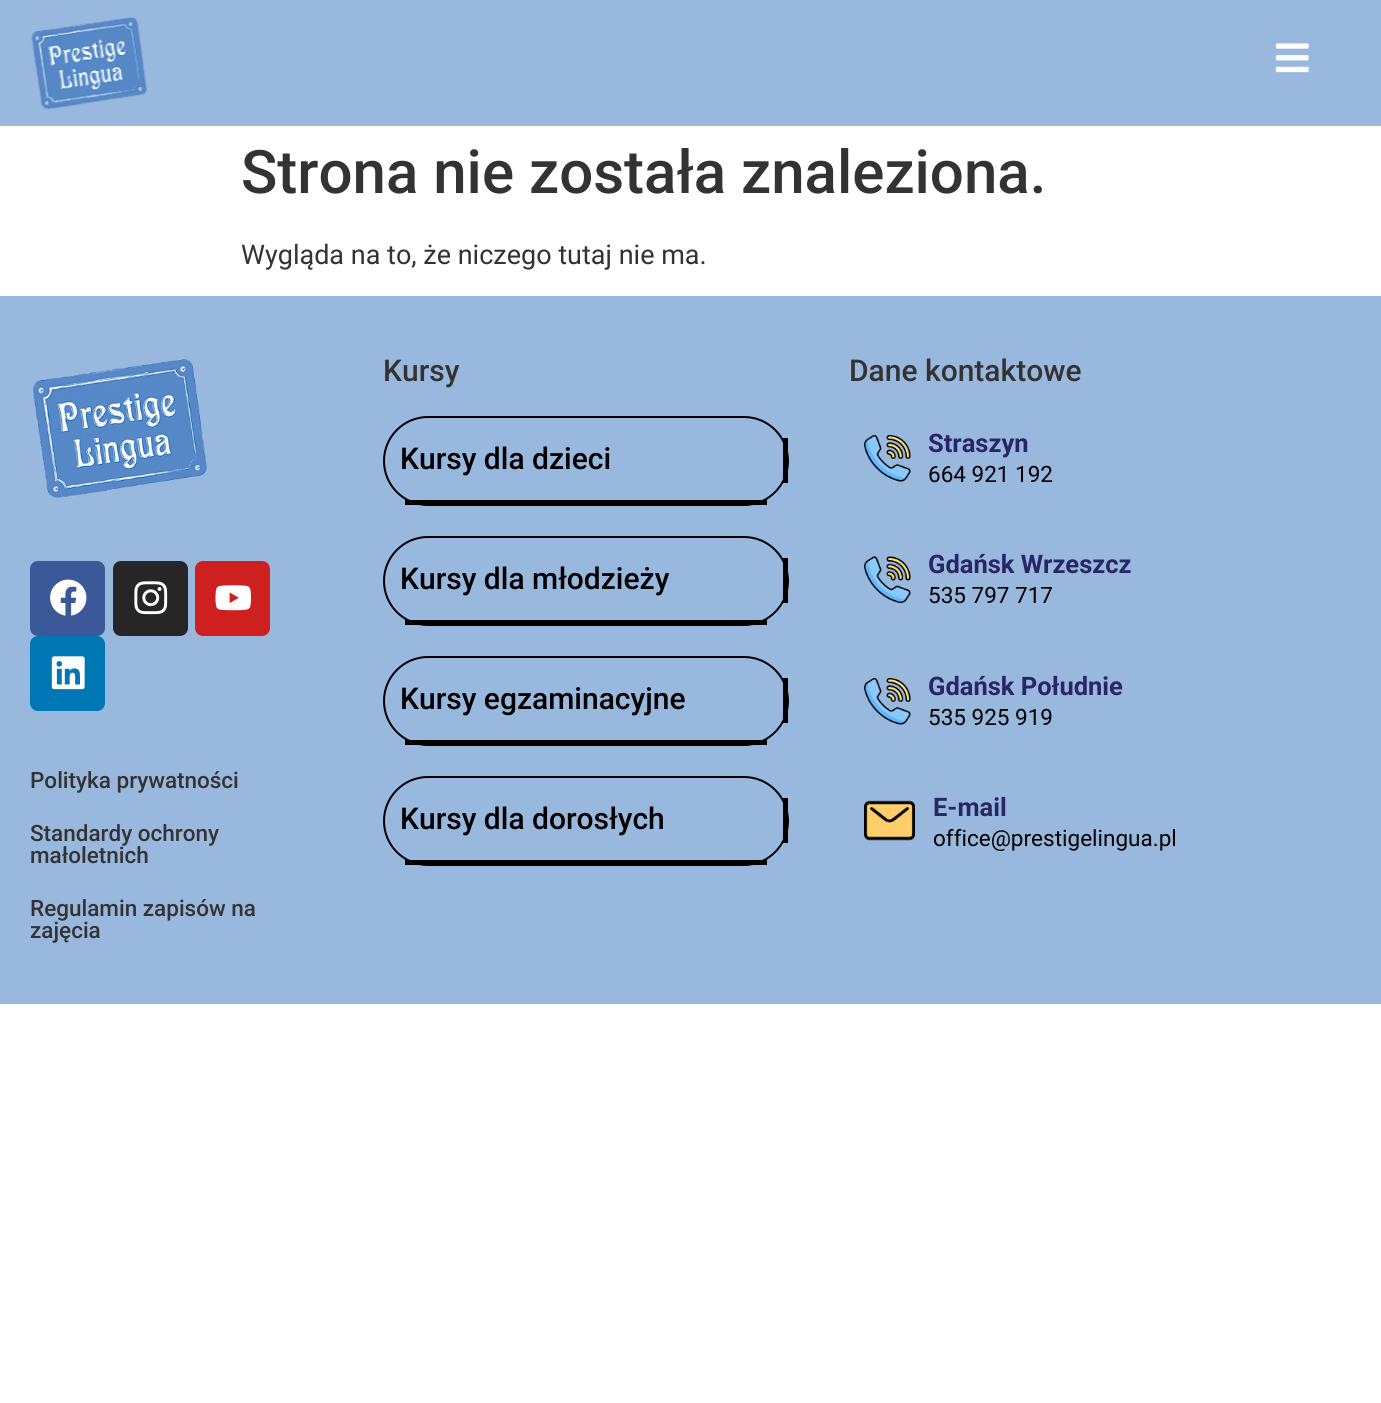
#include <cairo.h>
#include <math.h>
#include <stddef.h>


static void set_color(cairo_t *cr, unsigned color) {
    cairo_set_source_rgb(cr, (color >> 16) / 255.0, (color >> 8 & 255) / 255.0, (color & 255) / 255.0);
}

static void draw_text(cairo_t *cr, double x, double y, const char *s, const char *family, double size, int italic, int bold, unsigned color) {
    cairo_select_font_face(cr, family, italic ? CAIRO_FONT_SLANT_ITALIC : CAIRO_FONT_SLANT_NORMAL,
        bold ? CAIRO_FONT_WEIGHT_BOLD : CAIRO_FONT_WEIGHT_NORMAL);
    cairo_set_font_size(cr, size);
    set_color(cr, color);
    cairo_move_to(cr, x, y);
    cairo_show_text(cr, s);
}

static void fill_rect(cairo_t *cr, double x, double y, double w, double h, unsigned color) {
    set_color(cr, color);
    cairo_rectangle(cr, x, y, w, h);
    cairo_fill(cr);
}

static void rounded_rect(cairo_t *cr, double x, double y, double w, double h, double r) {
    cairo_new_sub_path(cr);
    cairo_arc(cr, x + w - r, y + h - r, r, 0, M_PI / 2);
    cairo_arc(cr, x + r, y + h - r, r, M_PI / 2, M_PI);
    cairo_arc(cr, x + r, y + r, r, M_PI, 1.5 * M_PI);
    cairo_arc(cr, x + w - r, y + r, r, 1.5 * M_PI, 2 * M_PI);
    cairo_close_path(cr);
}

static void draw_image(cairo_t *cr, const char *path, double x, double y, double w, double h) {
    cairo_surface_t *image = cairo_image_surface_create_from_png(path);
    cairo_save(cr);
    cairo_set_source_surface(cr, image, x, y);
    cairo_rectangle(cr, x, y, w, h);
    cairo_fill(cr);
    cairo_restore(cr);
    cairo_surface_destroy(image);
}

int main(void) {
    cairo_surface_t *surface = cairo_image_surface_create(CAIRO_FORMAT_RGB24, 1381, 1403);
    cairo_t *cr = cairo_create(surface);
    cairo_font_options_t *options = cairo_font_options_create();
    cairo_font_options_set_hint_metrics(options, CAIRO_HINT_METRICS_OFF);
    cairo_font_options_set_hint_style(options, CAIRO_HINT_STYLE_NONE);
    cairo_set_font_options(cr, options);
    cairo_set_miter_limit(cr, 4);
    set_color(cr, 0xFFFFFF);
    cairo_paint(cr);
    fill_rect(cr, 0, 0, 1381, 126, 0x99B8DD);
    draw_image(cr, "assets/img1.png", 31, 17, 116, 93);
    draw_image(cr, "assets/img2.png", 1275, 43, 34, 30);
    draw_text(cr, 241, 193, "Strona nie została znaleziona.", "Roboto Medium", 60, 0, 0, 0x333333);
    draw_text(cr, 241, 264, "Wygląda na to, że niczego tutaj nie ma.", "Roboto", 27, 0, 0, 0x333333);
    fill_rect(cr, 0, 296, 1381, 708, 0x99B8DD);
    draw_text(cr, 383, 381, "Kursy", "Roboto Medium", 30, 0, 0, 0x333333);
    rounded_rect(cr, 384, 417, 404, 88, 44);
    set_color(cr, 0x000000);
    cairo_stroke(cr);
    fill_rect(cr, 783, 438, 5, 45, 0x000000);
    fill_rect(cr, 405, 500, 362, 5, 0x000000);
    draw_text(cr, 400, 469, "Kursy dla dzieci", "Roboto Medium", 30, 0, 0, 0x000000);
    rounded_rect(cr, 384, 537, 404, 88, 44);
    cairo_stroke(cr);
    fill_rect(cr, 783, 558, 5, 45, 0x000000);
    fill_rect(cr, 405, 620, 362, 5, 0x000000);
    draw_text(cr, 400, 589, "Kursy dla młodzieży", "Roboto Medium", 30, 0, 0, 0x000000);
    rounded_rect(cr, 384, 657, 404, 88, 44);
    cairo_stroke(cr);
    fill_rect(cr, 783, 678, 5, 45, 0x000000);
    fill_rect(cr, 405, 740, 362, 5, 0x000000);
    draw_text(cr, 400, 709, "Kursy egzaminacyjne", "Roboto Medium", 30, 0, 0, 0x000000);
    rounded_rect(cr, 384, 777, 404, 88, 44);
    cairo_stroke(cr);
    fill_rect(cr, 783, 798, 5, 45, 0x000000);
    fill_rect(cr, 405, 860, 362, 5, 0x000000);
    draw_text(cr, 400, 829, "Kursy dla dorosłych", "Roboto Medium", 30, 0, 0, 0x000000);
    draw_text(cr, 849, 381, "Dane kontaktowe", "Roboto Medium", 30, 0, 0, 0x333333);
    draw_image(cr, "assets/img3.png", 864, 435, 47, 47);
    draw_text(cr, 928, 452, "Straszyn", "Roboto", 25.5, 0, 1, 0x282664);
    draw_text(cr, 928, 482, "664 921 192", "Roboto", 22.5, 0, 0, 0x000000);
    draw_image(cr, "assets/img4.png", 864, 556, 47, 47);
    draw_text(cr, 928, 573, "Gdańsk Wrzeszcz", "Roboto", 25.5, 0, 1, 0x282664);
    draw_text(cr, 928, 603, "535 797 717", "Roboto", 22.5, 0, 0, 0x000000);
    draw_image(cr, "assets/img3.png", 864, 678, 47, 47);
    draw_text(cr, 928, 695, "Gdańsk Południe", "Roboto", 25.5, 0, 1, 0x282664);
    draw_text(cr, 928, 725, "535 925 919", "Roboto", 22.5, 0, 0, 0x000000);
    draw_image(cr, "assets/img5.png", 864, 800, 51, 41);
    draw_text(cr, 933, 816, "E-mail", "Roboto", 25.5, 0, 1, 0x282664);
    draw_text(cr, 933, 846, "office@prestigelingua.pl", "Roboto", 22.5, 0, 0, 0x000000);
    draw_image(cr, "assets/img6.png", 32, 358, 175, 141);
    set_color(cr, 0x3B5998);
    rounded_rect(cr, 30, 561, 75, 75, 8);
    cairo_fill(cr);
    draw_image(cr, "assets/img7.png", 50, 579, 37, 37);
    set_color(cr, 0x262626);
    rounded_rect(cr, 113, 561, 75, 75, 8);
    cairo_fill(cr);
    draw_image(cr, "assets/img8.png", 134, 581, 34, 34);
    set_color(cr, 0xCD201F);
    rounded_rect(cr, 195, 561, 75, 75, 8);
    cairo_fill(cr);
    draw_image(cr, "assets/img9.png", 215, 585, 36, 26);
    set_color(cr, 0x0077B5);
    rounded_rect(cr, 30, 636, 75, 75, 8);
    cairo_fill(cr);
    draw_image(cr, "assets/img10.png", 51, 656, 34, 34);
    draw_text(cr, 30, 788, "Polityka prywatności", "Roboto Medium", 22.5, 0, 0, 0x333333);
    draw_text(cr, 30, 841, "Standardy ochrony", "Roboto Medium", 22.5, 0, 0, 0x333333);
    draw_text(cr, 30, 863, "małoletnich", "Roboto Medium", 22.5, 0, 0, 0x333333);
    draw_text(cr, 30, 916, "Regulamin zapisów na", "Roboto Medium", 22.5, 0, 0, 0x333333);
    draw_text(cr, 30, 938, "zajęcia", "Roboto Medium", 22.5, 0, 0, 0x333333);
    cairo_surface_write_to_png(surface, "output.png");
    cairo_font_options_destroy(options);
    cairo_destroy(cr);
    cairo_surface_destroy(surface);
    return 0;
}
